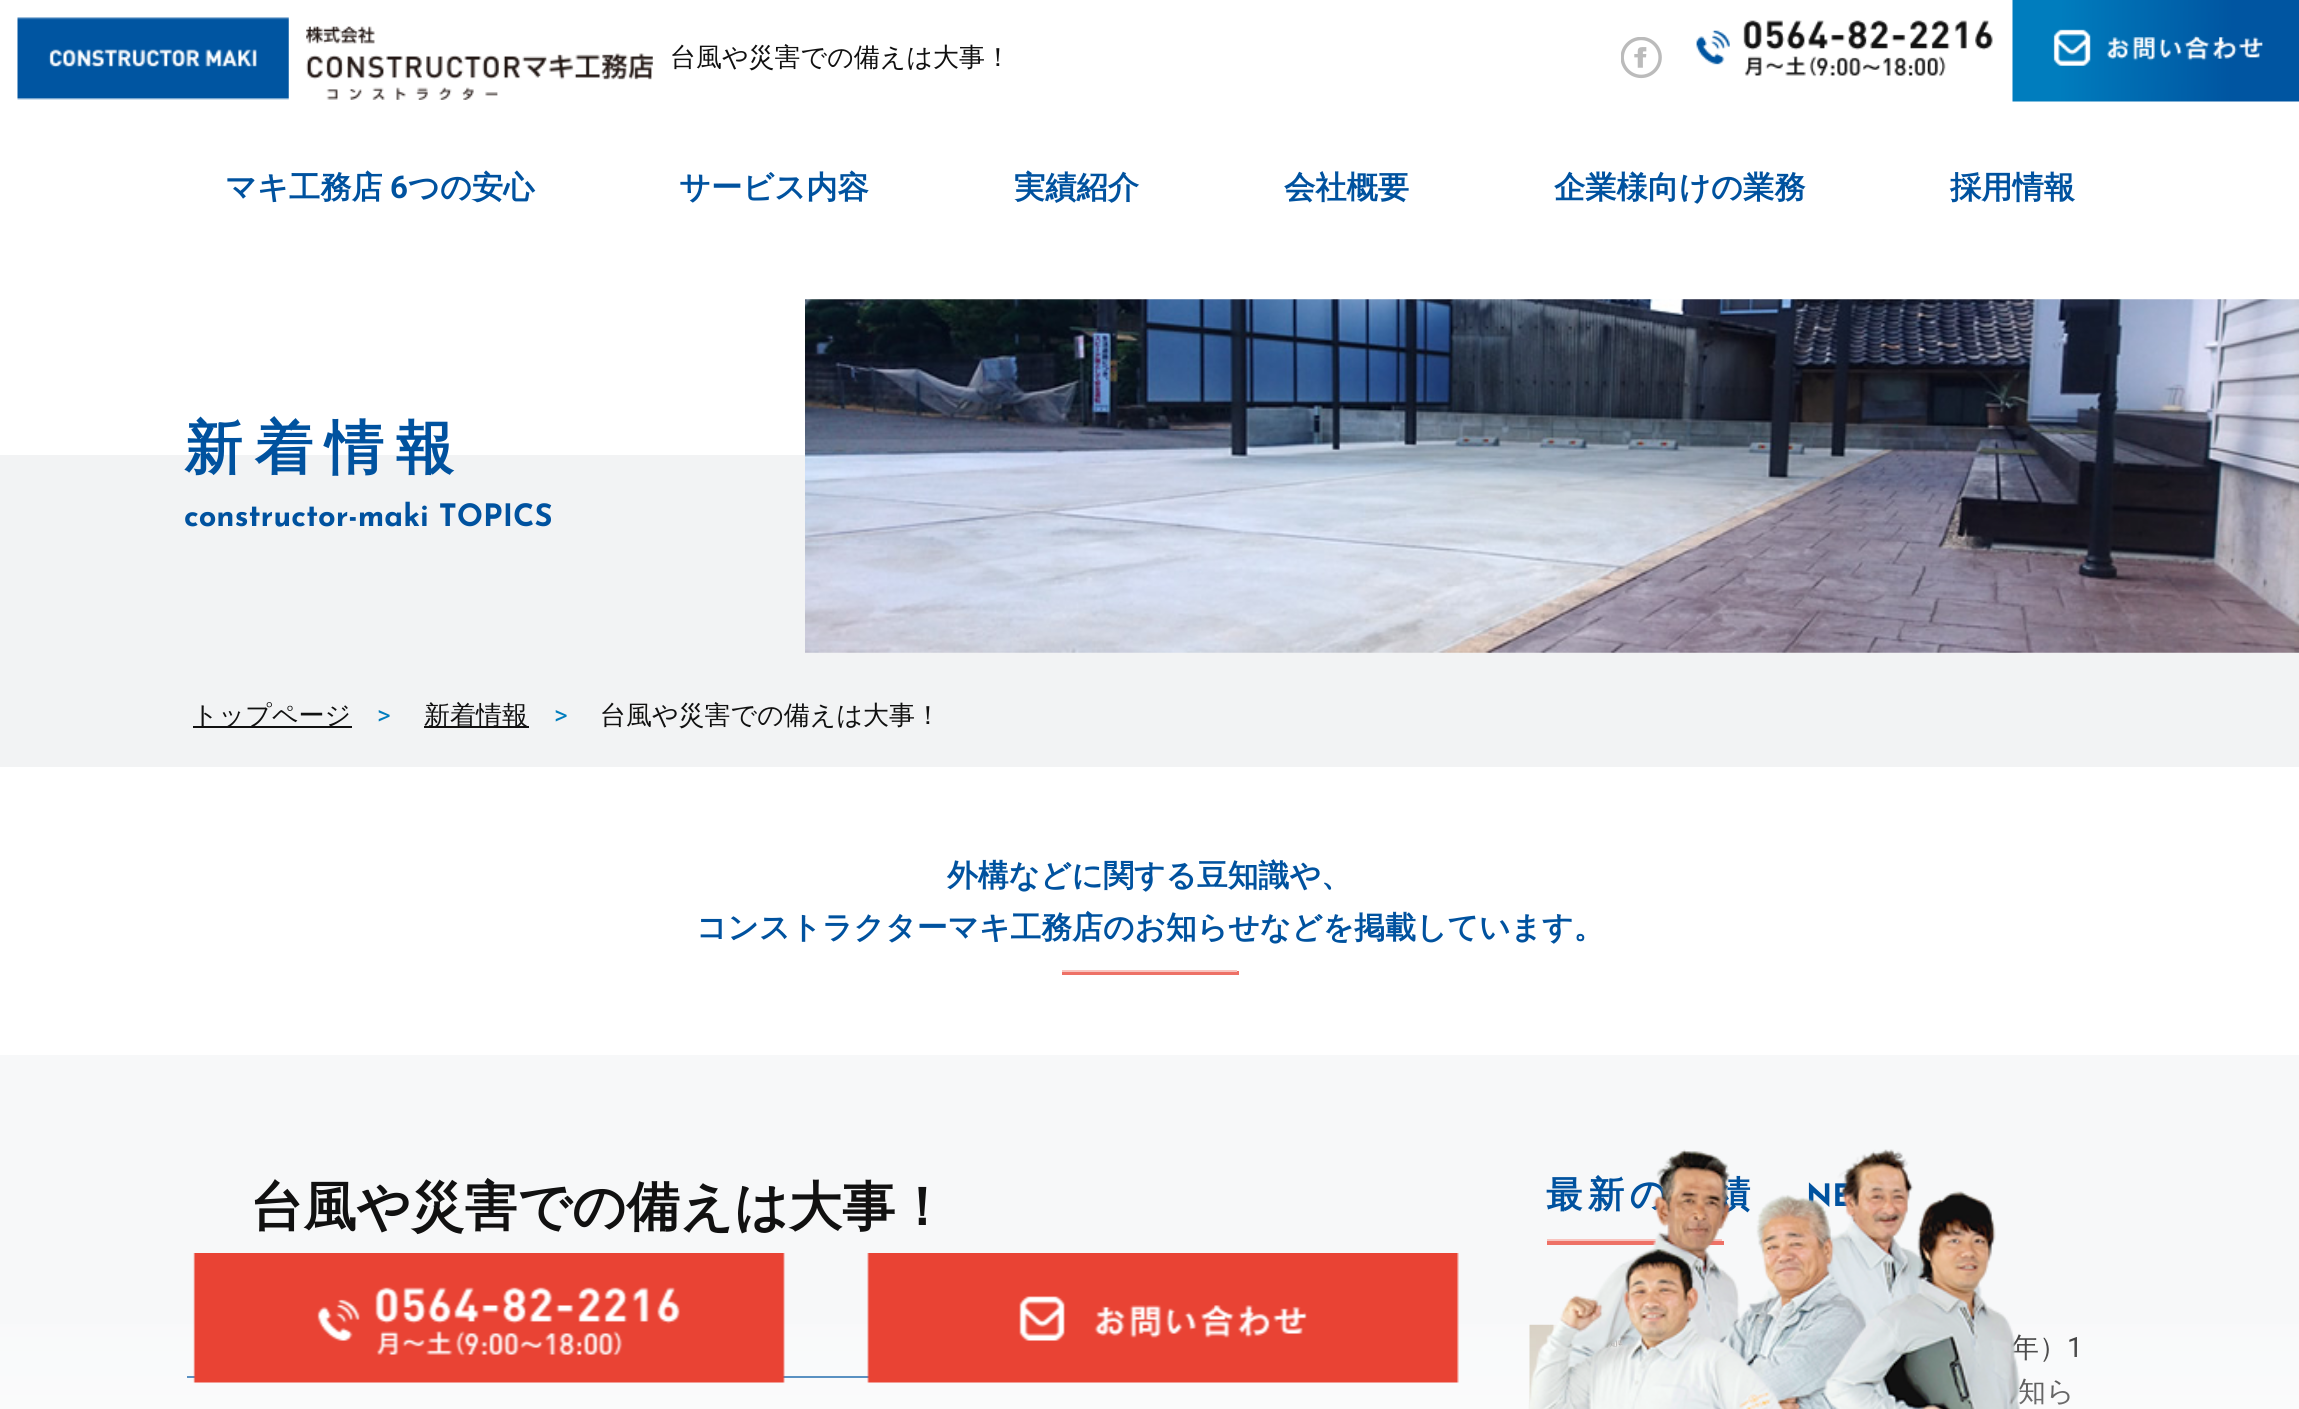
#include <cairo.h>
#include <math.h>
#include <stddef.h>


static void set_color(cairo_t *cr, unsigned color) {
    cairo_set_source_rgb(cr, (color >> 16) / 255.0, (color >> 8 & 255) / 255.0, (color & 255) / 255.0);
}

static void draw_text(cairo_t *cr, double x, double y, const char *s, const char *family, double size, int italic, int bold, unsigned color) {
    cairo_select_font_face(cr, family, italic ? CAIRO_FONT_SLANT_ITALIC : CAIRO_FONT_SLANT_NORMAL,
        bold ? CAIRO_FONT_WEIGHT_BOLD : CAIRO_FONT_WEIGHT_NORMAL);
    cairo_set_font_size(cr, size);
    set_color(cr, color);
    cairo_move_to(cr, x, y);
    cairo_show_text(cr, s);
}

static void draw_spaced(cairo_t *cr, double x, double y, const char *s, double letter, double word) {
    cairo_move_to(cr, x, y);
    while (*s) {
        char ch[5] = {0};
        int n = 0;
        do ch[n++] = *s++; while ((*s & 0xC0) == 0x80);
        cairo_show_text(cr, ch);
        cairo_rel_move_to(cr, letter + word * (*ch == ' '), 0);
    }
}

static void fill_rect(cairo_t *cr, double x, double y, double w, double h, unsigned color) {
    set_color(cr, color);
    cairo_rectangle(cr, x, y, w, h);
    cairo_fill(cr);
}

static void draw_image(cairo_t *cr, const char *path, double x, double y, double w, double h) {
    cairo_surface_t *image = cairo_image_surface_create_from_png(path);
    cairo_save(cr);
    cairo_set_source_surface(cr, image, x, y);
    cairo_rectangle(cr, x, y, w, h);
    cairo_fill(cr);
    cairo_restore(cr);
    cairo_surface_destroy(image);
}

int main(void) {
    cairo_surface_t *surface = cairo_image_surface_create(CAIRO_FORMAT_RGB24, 2299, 1409);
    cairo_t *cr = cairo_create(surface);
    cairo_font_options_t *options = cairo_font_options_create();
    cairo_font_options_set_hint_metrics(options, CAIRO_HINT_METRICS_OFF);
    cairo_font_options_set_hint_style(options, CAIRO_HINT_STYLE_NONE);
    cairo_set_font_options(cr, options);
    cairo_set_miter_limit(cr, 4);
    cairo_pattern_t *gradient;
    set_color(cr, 0xFFFFFF);
    cairo_paint(cr);
    draw_image(cr, "assets/img1.png", 17, 17, 272, 83);
    draw_image(cr, "assets/img2.png", 306, 26, 347, 74);
    draw_text(cr, 670, 66, "台風や災害での備えは大事！", "WenQuanYi Zen Hei Medium", 26, 0, 0, 0x111111);
    draw_image(cr, "assets/img3.png", 1621, 37, 41, 42);
    draw_image(cr, "assets/img4.png", 1696, 20, 297, 57);
    draw_image(cr, "assets/img5.png", 2012, 0, 287, 102);
    draw_text(cr, 225, 198, "マキ工務店", "WenQuanYi Zen Hei", 31.25, 0, 1, 0x00529F);
    draw_text(cr, 390, 198, "6", "Roboto", 31.25, 0, 1, 0x00529F);
    draw_text(cr, 408, 198, "つの安心", "WenQuanYi Zen Hei", 31.25, 0, 1, 0x00529F);
    draw_text(cr, 679, 198, "サービス内容", "WenQuanYi Zen Hei", 31.25, 0, 1, 0x00529F);
    draw_text(cr, 1014, 198, "実績紹介", "WenQuanYi Zen Hei", 31.25, 0, 1, 0x00529F);
    draw_text(cr, 1284, 198, "会社概要", "WenQuanYi Zen Hei", 31.25, 0, 1, 0x00529F);
    draw_text(cr, 1554, 198, "企業様向けの業務", "WenQuanYi Zen Hei", 31.25, 0, 1, 0x00529F);
    draw_text(cr, 1950, 198, "採用情報", "WenQuanYi Zen Hei", 31.25, 0, 1, 0x00529F);
    fill_rect(cr, 0, 455, 2299, 312, 0xF2F3F4);
    cairo_set_font_size(cr, 58.5);
    set_color(cr, 0x00529F);
    draw_spaced(cr, 184, 468, "新着情報", 12, 0);
    draw_text(cr, 184, 526, "constructor-maki TOPICS", "Josefin Sans", 30.8, 0, 1, 0x00529F);
    draw_image(cr, "assets/img6.png", 805, 299, 1494, 354);
    fill_rect(cr, 193, 726, 159, 2, 0x111111);
    draw_text(cr, 192, 724, "トップページ", "WenQuanYi Zen Hei Medium", 26, 0, 0, 0x111111);
    draw_text(cr, 377, 724, ">", "Roboto", 26, 0, 0, 0x007DBE);
    fill_rect(cr, 424, 726, 105, 2, 0x111111);
    draw_text(cr, 424, 724, "新着情報", "WenQuanYi Zen Hei Medium", 26, 0, 0, 0x111111);
    draw_text(cr, 554, 724, ">", "Roboto", 26, 0, 0, 0x007DBE);
    draw_text(cr, 600, 724, "台風や災害での備えは大事！", "WenQuanYi Zen Hei Medium", 26, 0, 0, 0x111111);
    draw_text(cr, 947, 886, "外構などに関する豆知識や、", "WenQuanYi Zen Hei", 30.8, 0, 1, 0x00529F);
    draw_text(cr, 696, 938, "コンストラクターマキ工務店のお知らせなどを掲載しています。", "WenQuanYi Zen Hei", 30.8, 0, 1, 0x00529F);
    fill_rect(cr, 1062, 971, 177, 4, 0xEE7166);
    fill_rect(cr, 1062, 970, 175, 2, 0xF8C4BF);
    fill_rect(cr, 0, 1055, 2299, 354, 0xF7F8F9);
    fill_rect(cr, 187, 1376, 682, 2, 0x0F5EA6);
    draw_image(cr, "assets/img10.png", 1529, 1324, 94, 85);
    draw_text(cr, 2011, 1357, "年）", "WenQuanYi Zen Hei Medium", 28, 0, 0, 0x111111);
    draw_text(cr, 2067, 1357, "1", "Roboto", 28, 0, 0, 0x111111);
    draw_text(cr, 2018, 1401, "知ら", "WenQuanYi Zen Hei Medium", 28, 0, 0, 0x111111);
    gradient = cairo_pattern_create_linear(1150, 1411, 1150, 1253);
    cairo_pattern_add_color_stop_rgba(gradient, 0, 1, 1, 1, 0.4);
    cairo_pattern_add_color_stop_rgba(gradient, 1, 1, 1, 1, 0);
    cairo_set_source(cr, gradient);
    cairo_pattern_destroy(gradient);
    cairo_rectangle(cr, 0, 1324, 2299, 85);
    cairo_fill(cr);
    draw_image(cr, "assets/img7.png", 193, 1253, 592, 130);
    draw_image(cr, "assets/img8.png", 867, 1253, 592, 130);
    cairo_select_font_face(cr, "WenQuanYi Zen Hei", CAIRO_FONT_SLANT_NORMAL, CAIRO_FONT_WEIGHT_BOLD);
    cairo_set_font_size(cr, 36.5);
    set_color(cr, 0x00529F);
    draw_spaced(cr, 1546, 1207, "最新の実績", 5.25, 0);
    draw_text(cr, 1806, 1206, "NE", "Josefin Sans", 30.8, 0, 1, 0x00529F);
    fill_rect(cr, 1547, 1241, 177, 4, 0xEE7166);
    fill_rect(cr, 1547, 1239, 175, 2, 0xF8C4BF);
    draw_image(cr, "assets/img9.png", 1528, 1149, 492, 260);
    draw_text(cr, 250, 1225, "台風や災害での備えは大事！", "WenQuanYi Zen Hei", 53.25, 0, 1, 0x111111);
    cairo_surface_write_to_png(surface, "output.png");
    cairo_font_options_destroy(options);
    cairo_destroy(cr);
    cairo_surface_destroy(surface);
    return 0;
}
